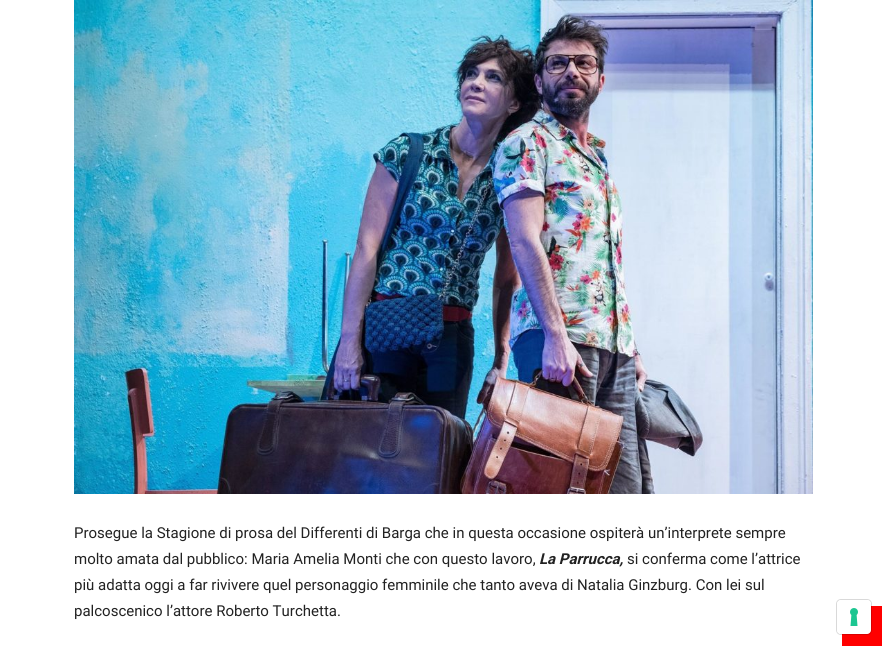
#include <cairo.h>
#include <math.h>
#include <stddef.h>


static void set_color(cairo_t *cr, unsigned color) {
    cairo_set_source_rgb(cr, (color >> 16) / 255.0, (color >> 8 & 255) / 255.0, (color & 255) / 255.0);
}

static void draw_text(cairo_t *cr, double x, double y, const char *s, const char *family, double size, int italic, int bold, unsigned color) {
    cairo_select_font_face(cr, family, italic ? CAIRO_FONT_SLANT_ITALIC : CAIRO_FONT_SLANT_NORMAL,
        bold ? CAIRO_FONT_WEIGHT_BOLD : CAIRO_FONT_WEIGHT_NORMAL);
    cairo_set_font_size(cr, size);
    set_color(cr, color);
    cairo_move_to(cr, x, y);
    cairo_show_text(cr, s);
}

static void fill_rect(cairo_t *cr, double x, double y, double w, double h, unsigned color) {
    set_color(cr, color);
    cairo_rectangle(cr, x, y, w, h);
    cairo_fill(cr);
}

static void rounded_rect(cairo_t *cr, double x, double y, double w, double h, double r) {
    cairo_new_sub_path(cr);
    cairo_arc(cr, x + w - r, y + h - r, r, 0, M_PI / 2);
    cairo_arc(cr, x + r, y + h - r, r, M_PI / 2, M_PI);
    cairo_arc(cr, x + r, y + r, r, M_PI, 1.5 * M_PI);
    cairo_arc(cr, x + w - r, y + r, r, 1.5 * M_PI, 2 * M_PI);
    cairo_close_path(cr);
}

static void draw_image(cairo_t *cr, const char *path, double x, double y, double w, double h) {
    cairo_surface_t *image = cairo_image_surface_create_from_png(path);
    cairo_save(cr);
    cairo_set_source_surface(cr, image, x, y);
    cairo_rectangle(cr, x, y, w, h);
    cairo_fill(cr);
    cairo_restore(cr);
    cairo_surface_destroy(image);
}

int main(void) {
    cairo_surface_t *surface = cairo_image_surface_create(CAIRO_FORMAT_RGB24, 887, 650);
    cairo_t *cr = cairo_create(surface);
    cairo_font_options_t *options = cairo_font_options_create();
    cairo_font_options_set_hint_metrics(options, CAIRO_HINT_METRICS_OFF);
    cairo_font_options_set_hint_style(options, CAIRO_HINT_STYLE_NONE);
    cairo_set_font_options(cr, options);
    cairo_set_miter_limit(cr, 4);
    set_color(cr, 0xFFFFFF);
    cairo_paint(cr);
    draw_image(cr, "assets/img1.png", 74, 0, 739, 494);
    draw_text(cr, 74, 538, "Prosegue la Stagione di prosa del Differenti di Barga che in questa occasione ospiterà un’interprete sempre", "Roboto", 15, 0, 0, 0x222222);
    draw_text(cr, 74, 564, "molto amata dal pubblico: Maria Amelia Monti che con questo lavoro,", "Roboto", 15, 0, 0, 0x222222);
    draw_text(cr, 539, 564, "La Parrucca,", "Roboto", 15, 1, 1, 0x222222);
    draw_text(cr, 627, 564, "si conferma come l’attrice", "Roboto", 15, 0, 0, 0x222222);
    draw_text(cr, 74, 590, "più adatta oggi a far rivivere quel personaggio femminile che tanto aveva di Natalia Ginzburg. Con lei sul", "Roboto", 15, 0, 0, 0x222222);
    draw_text(cr, 74, 616, "palcoscenico l’attore Roberto Turchetta.", "Roboto", 15, 0, 0, 0x222222);
    fill_rect(cr, 842, 606, 40, 40, 0xFF0000);
    rounded_rect(cr, 836.5, 599.5, 35, 35, 4.5);
    cairo_set_source_rgba(cr, 0, 0, 0, 0.15);
    cairo_set_line_width(cr, 1);
    cairo_stroke(cr);
    set_color(cr, 0xFFFFFF);
    rounded_rect(cr, 837, 600, 34, 34, 4);
    cairo_fill(cr);
    draw_image(cr, "assets/img2.png", 850, 608, 8, 18);
    cairo_surface_write_to_png(surface, "output.png");
    cairo_font_options_destroy(options);
    cairo_destroy(cr);
    cairo_surface_destroy(surface);
    return 0;
}
